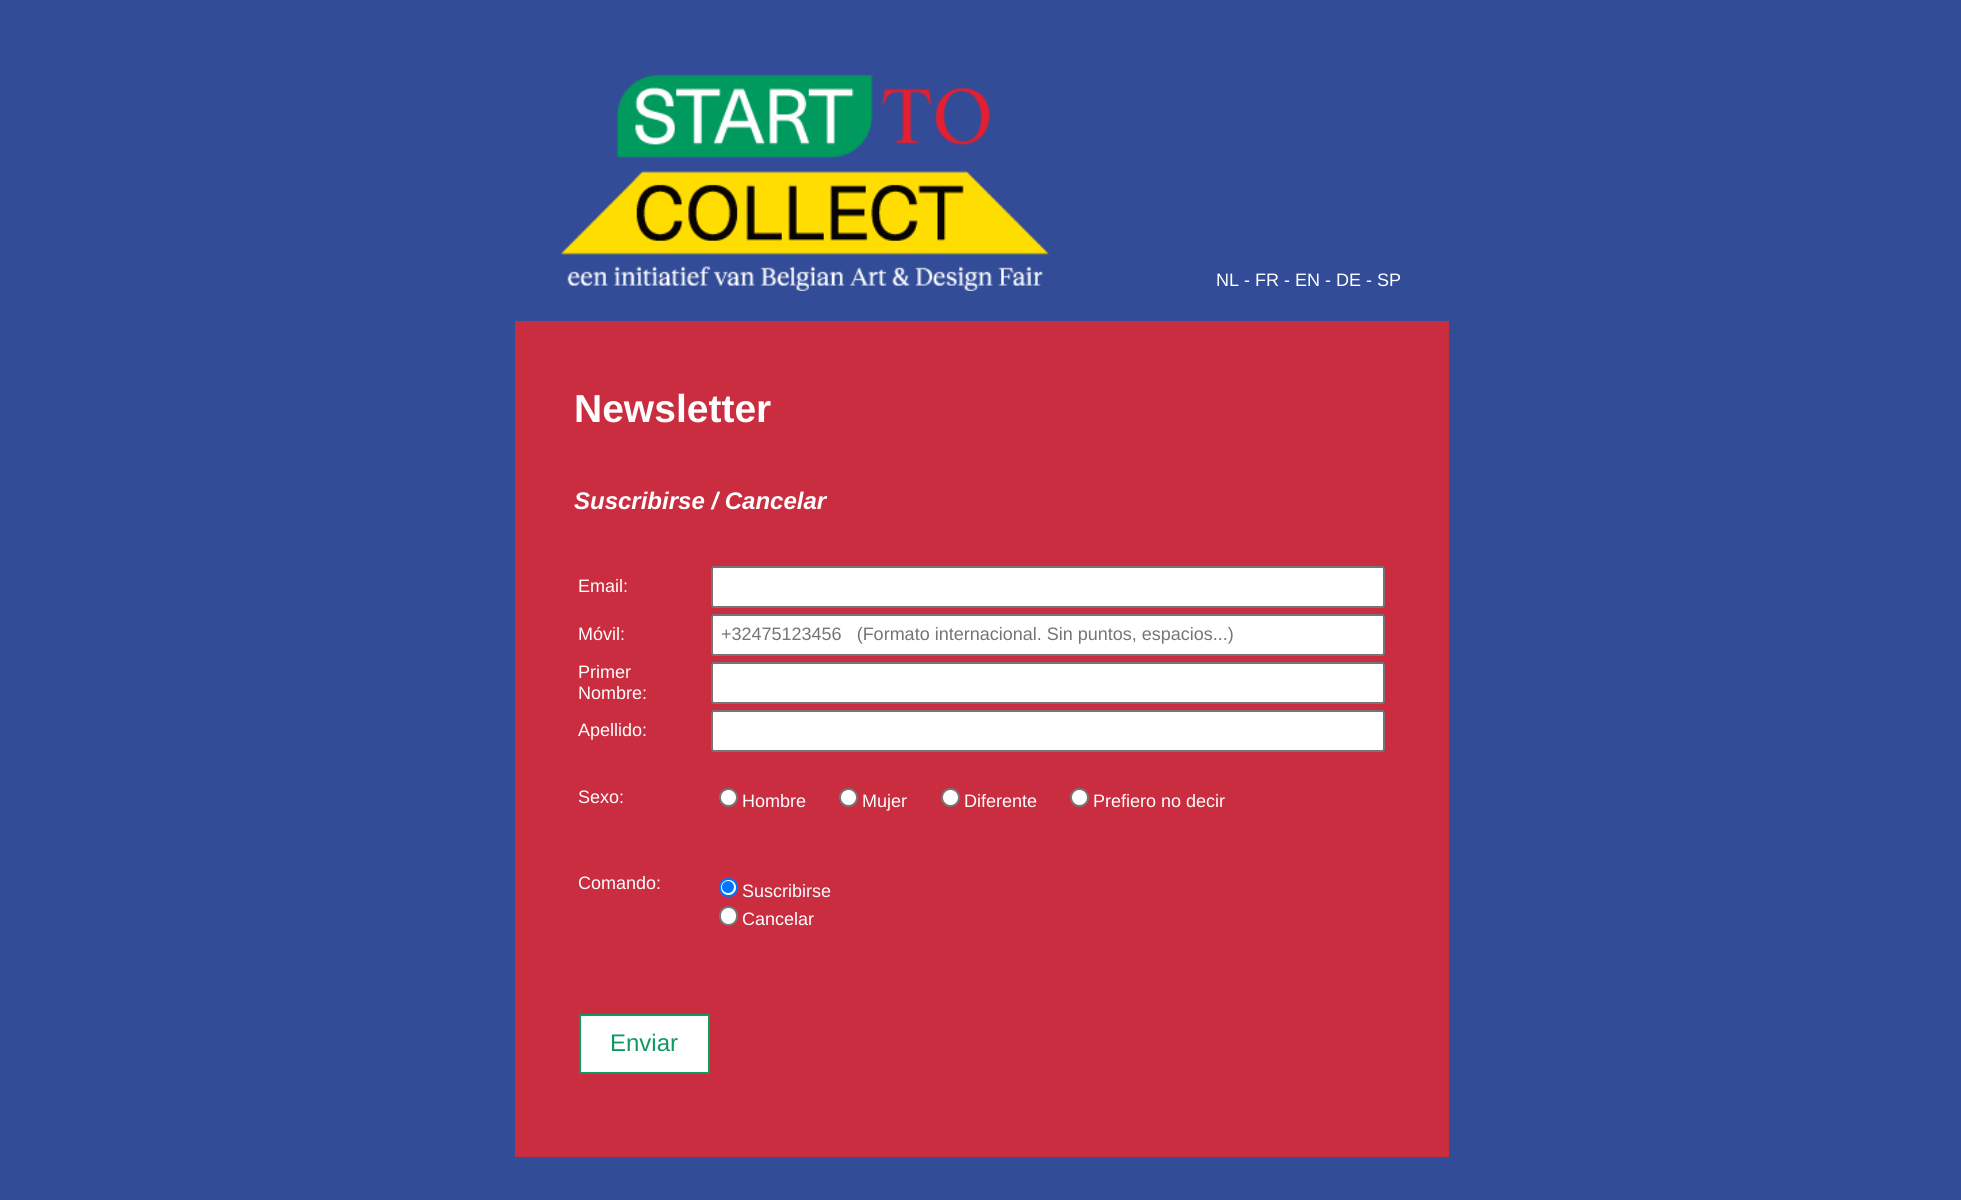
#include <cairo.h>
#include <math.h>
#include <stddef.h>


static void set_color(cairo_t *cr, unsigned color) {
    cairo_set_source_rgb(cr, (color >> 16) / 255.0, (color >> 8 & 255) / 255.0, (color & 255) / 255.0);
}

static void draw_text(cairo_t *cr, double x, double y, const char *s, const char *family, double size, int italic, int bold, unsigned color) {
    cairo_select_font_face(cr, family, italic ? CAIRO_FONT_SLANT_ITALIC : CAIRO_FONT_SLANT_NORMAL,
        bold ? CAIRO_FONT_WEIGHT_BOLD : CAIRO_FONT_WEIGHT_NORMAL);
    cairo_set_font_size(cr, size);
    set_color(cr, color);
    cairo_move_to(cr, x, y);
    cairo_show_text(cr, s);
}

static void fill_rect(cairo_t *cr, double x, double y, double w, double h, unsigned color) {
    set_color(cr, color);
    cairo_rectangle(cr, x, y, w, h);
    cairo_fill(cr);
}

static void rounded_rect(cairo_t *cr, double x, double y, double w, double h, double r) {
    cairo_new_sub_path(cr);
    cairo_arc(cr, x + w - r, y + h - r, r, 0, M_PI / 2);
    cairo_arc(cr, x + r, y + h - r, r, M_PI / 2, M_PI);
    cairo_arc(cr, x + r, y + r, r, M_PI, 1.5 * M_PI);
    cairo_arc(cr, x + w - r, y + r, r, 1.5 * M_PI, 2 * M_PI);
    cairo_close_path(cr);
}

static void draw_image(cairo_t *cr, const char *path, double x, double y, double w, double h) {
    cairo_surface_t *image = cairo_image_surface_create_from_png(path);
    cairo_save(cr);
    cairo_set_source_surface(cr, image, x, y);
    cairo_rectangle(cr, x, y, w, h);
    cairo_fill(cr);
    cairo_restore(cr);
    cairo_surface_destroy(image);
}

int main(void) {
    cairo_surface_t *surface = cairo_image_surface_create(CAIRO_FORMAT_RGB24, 1961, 1200);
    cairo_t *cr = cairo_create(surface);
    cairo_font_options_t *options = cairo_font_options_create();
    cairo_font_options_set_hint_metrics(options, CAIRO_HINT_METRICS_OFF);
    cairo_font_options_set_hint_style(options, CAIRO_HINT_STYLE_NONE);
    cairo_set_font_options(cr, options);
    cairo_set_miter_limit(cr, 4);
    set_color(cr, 0x324C98);
    cairo_paint(cr);
    draw_image(cr, "assets/img1.png", 561, 75, 488, 216);
    draw_text(cr, 1216, 286, "NL - FR - EN - DE - SP", "Liberation Sans", 18, 0, 0, 0xFFFFFF);
    fill_rect(cr, 515, 321, 934, 836, 0xC92D3F);
    draw_text(cr, 574, 422, "Newsletter", "Liberation Sans", 39, 0, 1, 0xFFFFFF);
    draw_text(cr, 574, 509, "Suscribirse / Cancelar", "Liberation Sans", 24, 1, 1, 0xFFFFFF);
    draw_text(cr, 578, 592, "Email:", "Liberation Sans", 18, 0, 0, 0xFFFFFF);
    rounded_rect(cr, 712, 567, 672, 40, 2);
    cairo_fill_preserve(cr);
    set_color(cr, 0x767676);
    cairo_stroke(cr);
    draw_text(cr, 578, 640, "Móvil:", "Liberation Sans", 18, 0, 0, 0xFFFFFF);
    rounded_rect(cr, 712, 615, 672, 40, 2);
    cairo_fill_preserve(cr);
    set_color(cr, 0x767676);
    cairo_stroke(cr);
    draw_text(cr, 721, 640, "+32475123456   (Formato internacional. Sin puntos, espacios...)", "Liberation Sans", 18, 0, 0, 0x757575);
    draw_text(cr, 578, 678, "Primer", "Liberation Sans", 18, 0, 0, 0xFFFFFF);
    draw_text(cr, 578, 699, "Nombre:", "Liberation Sans", 18, 0, 0, 0xFFFFFF);
    rounded_rect(cr, 712, 663, 672, 40, 2);
    cairo_fill_preserve(cr);
    set_color(cr, 0x767676);
    cairo_stroke(cr);
    draw_text(cr, 578, 736, "Apellido:", "Liberation Sans", 18, 0, 0, 0xFFFFFF);
    rounded_rect(cr, 712, 711, 672, 40, 2);
    cairo_fill_preserve(cr);
    set_color(cr, 0x767676);
    cairo_stroke(cr);
    draw_text(cr, 578, 803, "Sexo:", "Liberation Sans", 18, 0, 0, 0xFFFFFF);
    cairo_new_path(cr);
    cairo_arc(cr, 728.5, 797.5, 8.5, 0, 2 * M_PI);
    cairo_fill_preserve(cr);
    set_color(cr, 0x767676);
    cairo_stroke(cr);
    draw_text(cr, 742, 807, "Hombre", "Liberation Sans", 18, 0, 0, 0xFFFFFF);
    cairo_new_path(cr);
    cairo_arc(cr, 848.5, 797.5, 8.5, 0, 2 * M_PI);
    cairo_fill_preserve(cr);
    set_color(cr, 0x767676);
    cairo_stroke(cr);
    draw_text(cr, 862, 807, "Mujer", "Liberation Sans", 18, 0, 0, 0xFFFFFF);
    cairo_new_path(cr);
    cairo_arc(cr, 950.5, 797.5, 8.5, 0, 2 * M_PI);
    cairo_fill_preserve(cr);
    set_color(cr, 0x767676);
    cairo_stroke(cr);
    draw_text(cr, 964, 807, "Diferente", "Liberation Sans", 18, 0, 0, 0xFFFFFF);
    cairo_new_path(cr);
    cairo_arc(cr, 1079.5, 797.5, 8.5, 0, 2 * M_PI);
    cairo_fill_preserve(cr);
    set_color(cr, 0x767676);
    cairo_stroke(cr);
    draw_text(cr, 1093, 807, "Prefiero no decir", "Liberation Sans", 18, 0, 0, 0xFFFFFF);
    draw_text(cr, 578, 889, "Comando:", "Liberation Sans", 18, 0, 0, 0xFFFFFF);
    cairo_new_path(cr);
    cairo_arc(cr, 728.5, 887.5, 8.5, 0, 2 * M_PI);
    cairo_fill_preserve(cr);
    set_color(cr, 0x0075FF);
    cairo_stroke(cr);
    cairo_arc(cr, 728, 887, 6, 0, 2 * M_PI);
    cairo_fill(cr);
    draw_text(cr, 742, 897, "Suscribirse", "Liberation Sans", 18, 0, 0, 0xFFFFFF);
    rounded_rect(cr, 720, 907, 17, 18, 8.5);
    cairo_fill_preserve(cr);
    set_color(cr, 0x767676);
    cairo_stroke(cr);
    draw_text(cr, 742, 925, "Cancelar", "Liberation Sans", 18, 0, 0, 0xFFFFFF);
    cairo_rectangle(cr, 580, 1015, 129, 58);
    cairo_fill_preserve(cr);
    set_color(cr, 0x0E9A5F);
    cairo_stroke(cr);
    draw_text(cr, 610, 1051, "Enviar", "Liberation Sans", 24, 0, 0, 0x0E9A5F);
    cairo_surface_write_to_png(surface, "output.png");
    cairo_font_options_destroy(options);
    cairo_destroy(cr);
    cairo_surface_destroy(surface);
    return 0;
}
